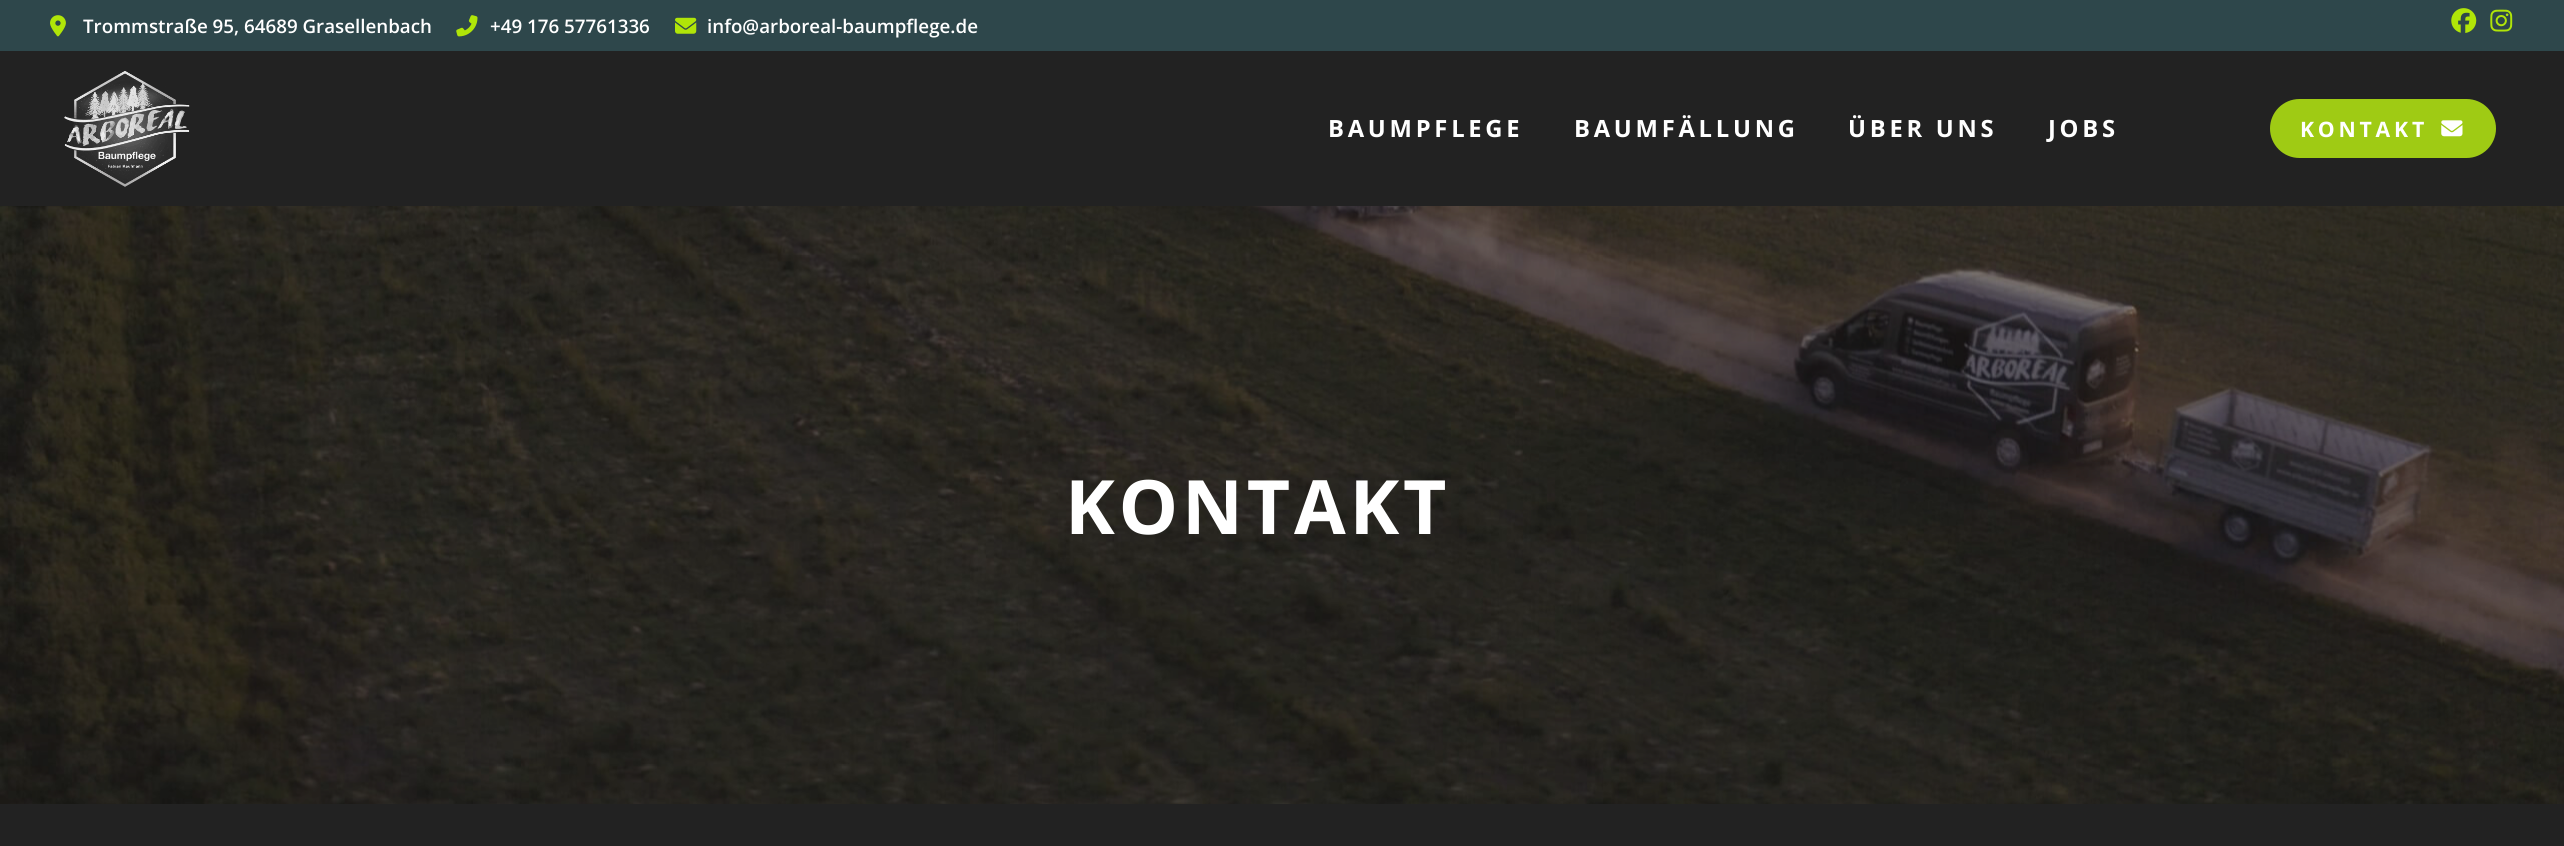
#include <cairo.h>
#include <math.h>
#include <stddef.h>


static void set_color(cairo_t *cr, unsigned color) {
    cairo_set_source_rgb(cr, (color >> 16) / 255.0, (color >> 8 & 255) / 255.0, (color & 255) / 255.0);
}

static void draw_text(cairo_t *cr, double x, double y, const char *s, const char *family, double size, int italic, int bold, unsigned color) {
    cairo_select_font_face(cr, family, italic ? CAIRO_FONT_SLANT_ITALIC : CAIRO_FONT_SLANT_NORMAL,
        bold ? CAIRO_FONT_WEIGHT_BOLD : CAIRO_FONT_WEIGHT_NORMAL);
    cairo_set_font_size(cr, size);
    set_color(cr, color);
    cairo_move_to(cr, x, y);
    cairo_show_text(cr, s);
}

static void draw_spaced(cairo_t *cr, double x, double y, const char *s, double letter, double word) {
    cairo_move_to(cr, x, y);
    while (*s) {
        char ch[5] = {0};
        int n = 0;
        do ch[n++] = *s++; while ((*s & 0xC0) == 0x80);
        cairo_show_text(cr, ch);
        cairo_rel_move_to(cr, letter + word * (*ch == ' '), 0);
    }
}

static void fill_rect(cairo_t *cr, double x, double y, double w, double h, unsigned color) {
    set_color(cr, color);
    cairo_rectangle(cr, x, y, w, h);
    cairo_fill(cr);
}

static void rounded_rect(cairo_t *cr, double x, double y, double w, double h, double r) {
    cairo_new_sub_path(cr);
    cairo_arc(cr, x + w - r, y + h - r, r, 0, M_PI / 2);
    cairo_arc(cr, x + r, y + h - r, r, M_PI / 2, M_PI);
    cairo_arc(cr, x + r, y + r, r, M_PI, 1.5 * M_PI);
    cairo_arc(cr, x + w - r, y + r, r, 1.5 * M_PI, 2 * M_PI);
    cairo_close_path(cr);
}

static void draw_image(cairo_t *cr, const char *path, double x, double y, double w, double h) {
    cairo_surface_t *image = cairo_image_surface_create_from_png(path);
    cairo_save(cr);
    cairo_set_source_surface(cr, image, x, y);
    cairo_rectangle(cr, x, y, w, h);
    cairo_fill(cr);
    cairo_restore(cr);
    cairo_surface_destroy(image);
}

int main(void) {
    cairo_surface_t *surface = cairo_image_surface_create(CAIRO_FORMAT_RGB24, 2564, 846);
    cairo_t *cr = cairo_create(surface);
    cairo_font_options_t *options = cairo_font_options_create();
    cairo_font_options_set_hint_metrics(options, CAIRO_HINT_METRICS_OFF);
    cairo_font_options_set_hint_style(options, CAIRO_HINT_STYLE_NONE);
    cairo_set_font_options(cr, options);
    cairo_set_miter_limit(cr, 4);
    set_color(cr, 0x222222);
    cairo_paint(cr);
    fill_rect(cr, 0, 0, 2564, 51, 0x2E474B);
    draw_image(cr, "assets/img1.png", 50, 15, 16, 22);
    draw_text(cr, 83, 33, "Trommstraße 95, 64689 Grasellenbach", "Open Sans SemiBold", 18.75, 0, 0, 0xFFFFFF);
    draw_image(cr, "assets/img2.png", 456, 15, 22, 22);
    draw_text(cr, 490, 33, "+49 176 57761336", "Open Sans SemiBold", 18.75, 0, 0, 0xFFFFFF);
    draw_image(cr, "assets/img3.png", 675, 17, 22, 17);
    draw_text(cr, 707, 33, "info@arboreal-baumpflege.de", "Open Sans SemiBold", 18.75, 0, 0, 0xFFFFFF);
    draw_image(cr, "assets/img4.png", 2451, 8, 26, 25);
    draw_image(cr, "assets/img5.png", 2490, 9, 23, 23);
    draw_image(cr, "assets/img6.png", 64, 71, 126, 116);
    cairo_select_font_face(cr, "Open Sans", CAIRO_FONT_SLANT_NORMAL, CAIRO_FONT_WEIGHT_BOLD);
    cairo_set_font_size(cr, 23.75);
    draw_spaced(cr, 1328, 137, "BAUMPFLEGE", 3.75, 0);
    draw_spaced(cr, 1574, 137, "BAUMFÄLLUNG", 3.75, 0);
    draw_spaced(cr, 1848, 137, "ÜBER UNS", 3.75, 0);
    draw_spaced(cr, 2048, 137, "JOBS", 3.75, 0);
    set_color(cr, 0x9FCB14);
    rounded_rect(cr, 2270, 99, 226, 59, 29.5);
    cairo_fill(cr);
    cairo_set_font_size(cr, 21.25);
    set_color(cr, 0xFFFFFF);
    draw_spaced(cr, 2300, 137, "KONTAKT", 3.75, 0);
    draw_image(cr, "assets/img7.png", 2441, 120, 22, 17);
    draw_image(cr, "assets/img8.png", 0, 206, 2564, 598);
    cairo_set_font_size(cr, 75);
    draw_spaced(cr, 1065, 534, "KONTAKT", 3.75, 0);
    cairo_surface_write_to_png(surface, "output.png");
    cairo_font_options_destroy(options);
    cairo_destroy(cr);
    cairo_surface_destroy(surface);
    return 0;
}
